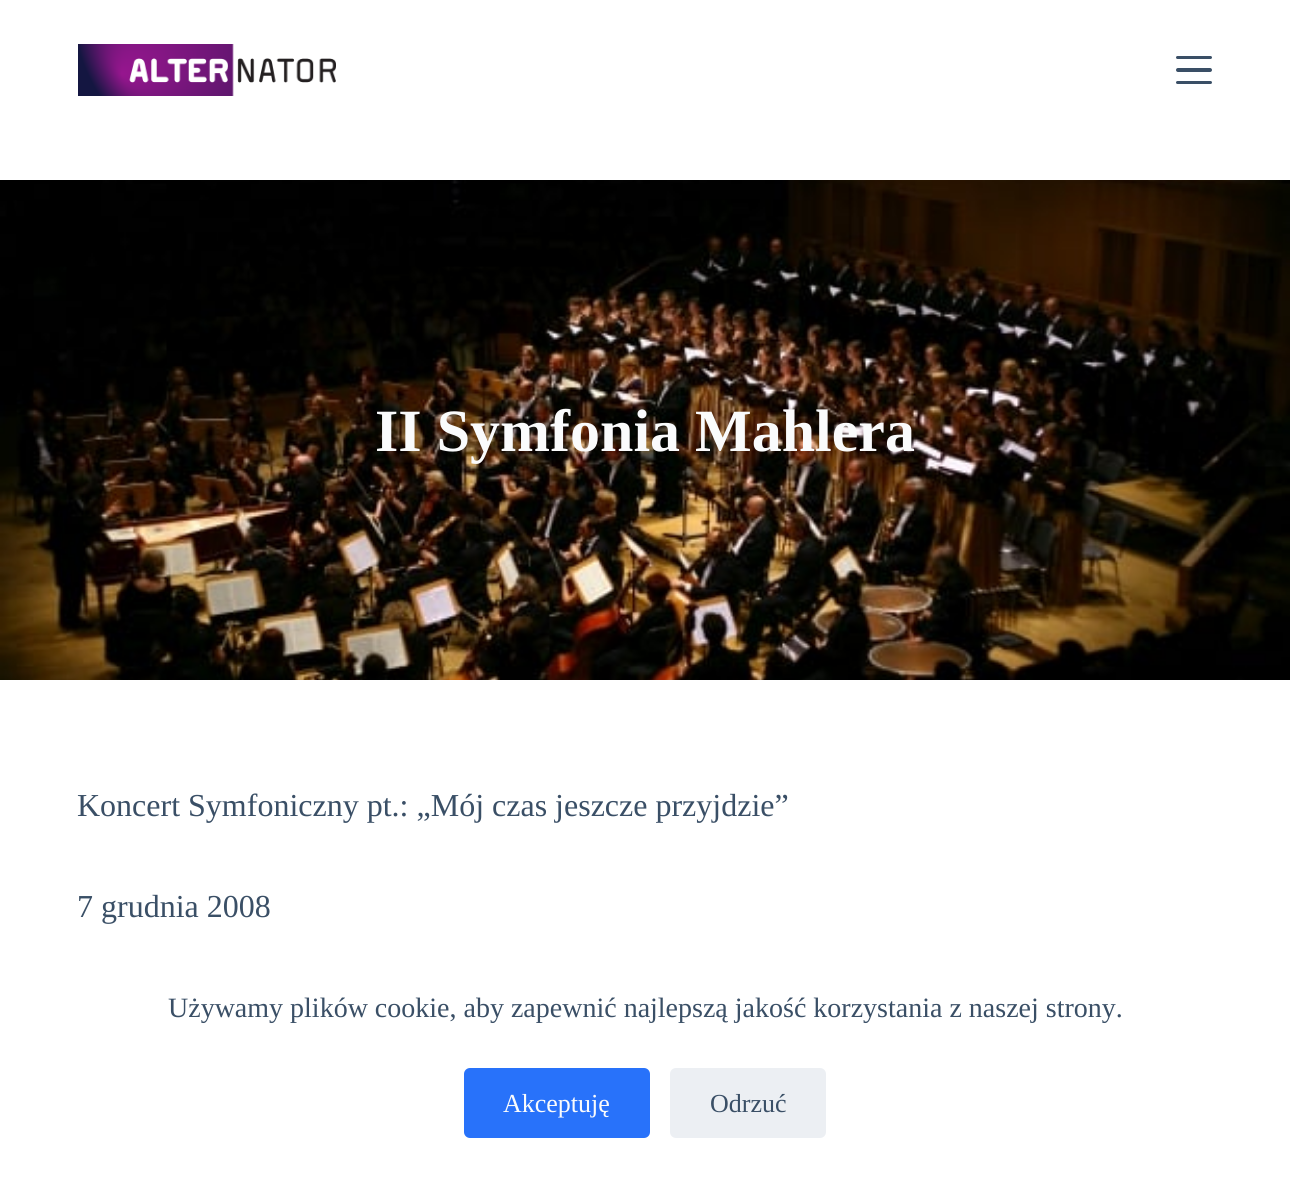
#include <cairo.h>
#include <math.h>
#include <stddef.h>


static void set_color(cairo_t *cr, unsigned color) {
    cairo_set_source_rgb(cr, (color >> 16) / 255.0, (color >> 8 & 255) / 255.0, (color & 255) / 255.0);
}

static void draw_text(cairo_t *cr, double x, double y, const char *s, const char *family, double size, int italic, int bold, unsigned color) {
    cairo_select_font_face(cr, family, italic ? CAIRO_FONT_SLANT_ITALIC : CAIRO_FONT_SLANT_NORMAL,
        bold ? CAIRO_FONT_WEIGHT_BOLD : CAIRO_FONT_WEIGHT_NORMAL);
    cairo_set_font_size(cr, size);
    set_color(cr, color);
    cairo_move_to(cr, x, y);
    cairo_show_text(cr, s);
}

static void rounded_rect(cairo_t *cr, double x, double y, double w, double h, double r) {
    cairo_new_sub_path(cr);
    cairo_arc(cr, x + w - r, y + h - r, r, 0, M_PI / 2);
    cairo_arc(cr, x + r, y + h - r, r, M_PI / 2, M_PI);
    cairo_arc(cr, x + r, y + r, r, M_PI, 1.5 * M_PI);
    cairo_arc(cr, x + w - r, y + r, r, 1.5 * M_PI, 2 * M_PI);
    cairo_close_path(cr);
}

static void draw_image(cairo_t *cr, const char *path, double x, double y, double w, double h) {
    cairo_surface_t *image = cairo_image_surface_create_from_png(path);
    cairo_save(cr);
    cairo_set_source_surface(cr, image, x, y);
    cairo_rectangle(cr, x, y, w, h);
    cairo_fill(cr);
    cairo_restore(cr);
    cairo_surface_destroy(image);
}

int main(void) {
    cairo_surface_t *surface = cairo_image_surface_create(CAIRO_FORMAT_RGB24, 1290, 1177);
    cairo_t *cr = cairo_create(surface);
    cairo_font_options_t *options = cairo_font_options_create();
    cairo_font_options_set_hint_metrics(options, CAIRO_HINT_METRICS_OFF);
    cairo_font_options_set_hint_style(options, CAIRO_HINT_STYLE_NONE);
    cairo_set_font_options(cr, options);
    cairo_set_miter_limit(cr, 4);
    set_color(cr, 0xFFFFFF);
    cairo_paint(cr);
    draw_image(cr, "assets/img1.png", 78, 44, 258, 52);
    set_color(cr, 0x3A4F66);
    rounded_rect(cr, 1176, 56, 36, 3, 1.5);
    cairo_fill(cr);
    rounded_rect(cr, 1176, 68, 36, 4, 2);
    cairo_fill(cr);
    rounded_rect(cr, 1176, 81, 36, 3, 1.5);
    cairo_fill(cr);
    draw_image(cr, "assets/img2.png", 0, 180, 1290, 500);
    draw_text(cr, 375, 451, "II Symfonia Mahlera", "Liberation Serif", 60, 0, 1, 0xFAFBFC);
    draw_text(cr, 77, 816, "Koncert Symfoniczny pt.: „Mój czas jeszcze przyjdzie”", "Liberation Serif", 32, 0, 0, 0x3A4F66);
    draw_text(cr, 77, 917, "7 grudnia 2008", "Liberation Serif", 32, 0, 0, 0x3A4F66);
    draw_text(cr, 168, 1017, "Używamy plików cookie, aby zapewnić najlepszą jakość korzystania z naszej strony.", "Liberation Serif", 28, 0, 0, 0x3A4F66);
    set_color(cr, 0x2872FA);
    rounded_rect(cr, 464, 1068, 186, 70, 6);
    cairo_fill(cr);
    draw_text(cr, 503, 1112, "Akceptuję", "Liberation Serif", 26, 0, 0, 0xFAFBFC);
    set_color(cr, 0xECEFF3);
    rounded_rect(cr, 670, 1068, 156, 70, 6);
    cairo_fill(cr);
    draw_text(cr, 710, 1112, "Odrzuć", "Liberation Serif", 26, 0, 0, 0x3A4F66);
    cairo_surface_write_to_png(surface, "output.png");
    cairo_font_options_destroy(options);
    cairo_destroy(cr);
    cairo_surface_destroy(surface);
    return 0;
}
